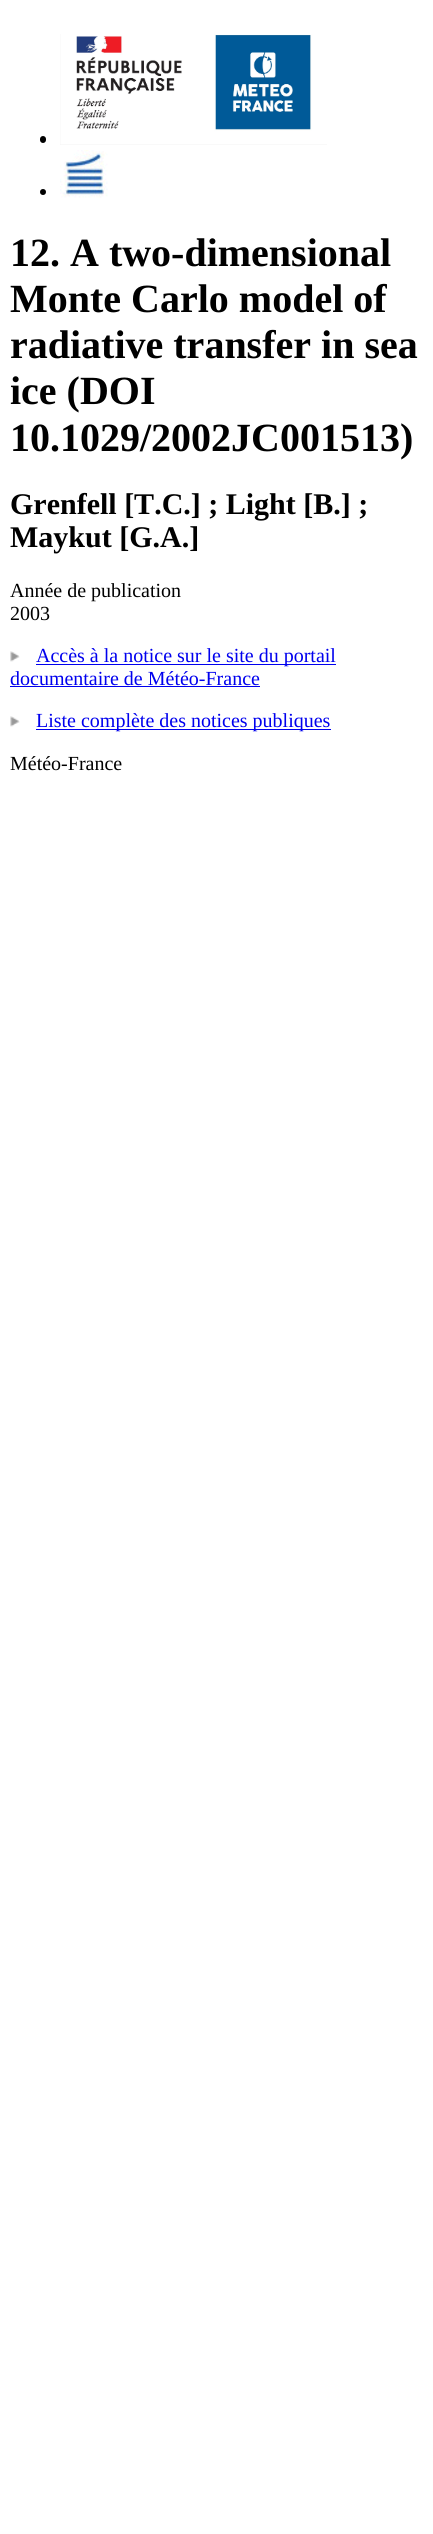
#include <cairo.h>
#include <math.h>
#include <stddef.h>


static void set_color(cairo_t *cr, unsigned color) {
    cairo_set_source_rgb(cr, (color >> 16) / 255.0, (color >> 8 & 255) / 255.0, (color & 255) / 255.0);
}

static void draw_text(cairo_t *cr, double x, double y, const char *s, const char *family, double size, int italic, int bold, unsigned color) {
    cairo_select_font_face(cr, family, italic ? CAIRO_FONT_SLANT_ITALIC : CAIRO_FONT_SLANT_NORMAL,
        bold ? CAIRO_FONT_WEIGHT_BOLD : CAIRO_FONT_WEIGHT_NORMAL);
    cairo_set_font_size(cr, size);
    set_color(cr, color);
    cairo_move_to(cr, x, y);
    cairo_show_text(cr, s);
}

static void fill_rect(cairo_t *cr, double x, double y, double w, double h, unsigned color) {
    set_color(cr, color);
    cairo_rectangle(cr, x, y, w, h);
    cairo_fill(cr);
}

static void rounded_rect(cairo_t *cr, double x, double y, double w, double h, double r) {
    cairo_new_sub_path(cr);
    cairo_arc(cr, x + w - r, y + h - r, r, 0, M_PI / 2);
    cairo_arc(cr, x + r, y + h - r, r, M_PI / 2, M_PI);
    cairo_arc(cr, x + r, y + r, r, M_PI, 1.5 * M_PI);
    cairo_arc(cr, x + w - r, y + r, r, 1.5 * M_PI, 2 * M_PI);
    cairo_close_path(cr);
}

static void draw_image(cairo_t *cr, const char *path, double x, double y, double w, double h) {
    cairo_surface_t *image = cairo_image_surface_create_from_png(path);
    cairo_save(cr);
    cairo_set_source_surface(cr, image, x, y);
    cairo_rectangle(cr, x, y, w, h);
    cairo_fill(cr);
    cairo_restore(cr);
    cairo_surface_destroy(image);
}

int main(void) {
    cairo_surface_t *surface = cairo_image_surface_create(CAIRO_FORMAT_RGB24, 433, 2534);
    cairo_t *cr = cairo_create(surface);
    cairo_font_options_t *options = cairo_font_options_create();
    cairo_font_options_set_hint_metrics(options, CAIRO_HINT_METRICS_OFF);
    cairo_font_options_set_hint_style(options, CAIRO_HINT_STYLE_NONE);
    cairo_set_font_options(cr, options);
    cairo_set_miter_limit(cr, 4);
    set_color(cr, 0xFFFFFF);
    cairo_paint(cr);
    set_color(cr, 0x000000);
    rounded_rect(cr, 40, 136, 6, 7, 3);
    cairo_fill(cr);
    draw_image(cr, "assets/img1.png", 60, 34, 267, 111);
    cairo_arc(cr, 43, 192, 3, 0, 2 * M_PI);
    cairo_fill(cr);
    draw_image(cr, "assets/img2.png", 60, 150, 48, 48);
    draw_text(cr, 10, 266, "12. A two-dimensional", "Liberation Serif", 40, 0, 1, 0x000000);
    draw_text(cr, 10, 312, "Monte Carlo model of", "Liberation Serif", 40, 0, 1, 0x000000);
    draw_text(cr, 10, 358, "radiative transfer in sea", "Liberation Serif", 40, 0, 1, 0x000000);
    draw_text(cr, 10, 404, "ice (DOI", "Liberation Serif", 40, 0, 1, 0x000000);
    draw_text(cr, 10, 451, "10.1029/2002JC001513)", "Liberation Serif", 40, 0, 1, 0x000000);
    draw_text(cr, 10, 514, "Grenfell [T.C.] ; Light [B.] ;", "Liberation Serif", 30, 0, 1, 0x000000);
    draw_text(cr, 10, 547, "Maykut [G.A.]", "Liberation Serif", 30, 0, 1, 0x000000);
    draw_text(cr, 10, 597, "Année de publication", "Liberation Serif", 20, 0, 0, 0x000000);
    draw_text(cr, 10, 620, "2003", "Liberation Serif", 20, 0, 0, 0x000000);
    draw_image(cr, "assets/img3.png", 10, 651, 10, 11);
    fill_rect(cr, 36, 664, 300, 1, 0x0000EE);
    draw_text(cr, 36, 662, "Accès à la notice sur le site du portail", "Liberation Serif", 20, 0, 0, 0x0000EE);
    draw_text(cr, 10, 685, "documentaire de Météo-France", "Liberation Serif", 20, 0, 0, 0x0000EE);
    fill_rect(cr, 10, 686, 250, 1, 0x0000EE);
    draw_image(cr, "assets/img3.png", 10, 716, 10, 11);
    fill_rect(cr, 36, 729, 295, 1, 0x0000EE);
    draw_text(cr, 36, 727, "Liste complète des notices publiques", "Liberation Serif", 20, 0, 0, 0x0000EE);
    draw_text(cr, 10, 770, "Météo-France", "Liberation Serif", 20, 0, 0, 0x000000);
    cairo_surface_write_to_png(surface, "output.png");
    cairo_font_options_destroy(options);
    cairo_destroy(cr);
    cairo_surface_destroy(surface);
    return 0;
}
